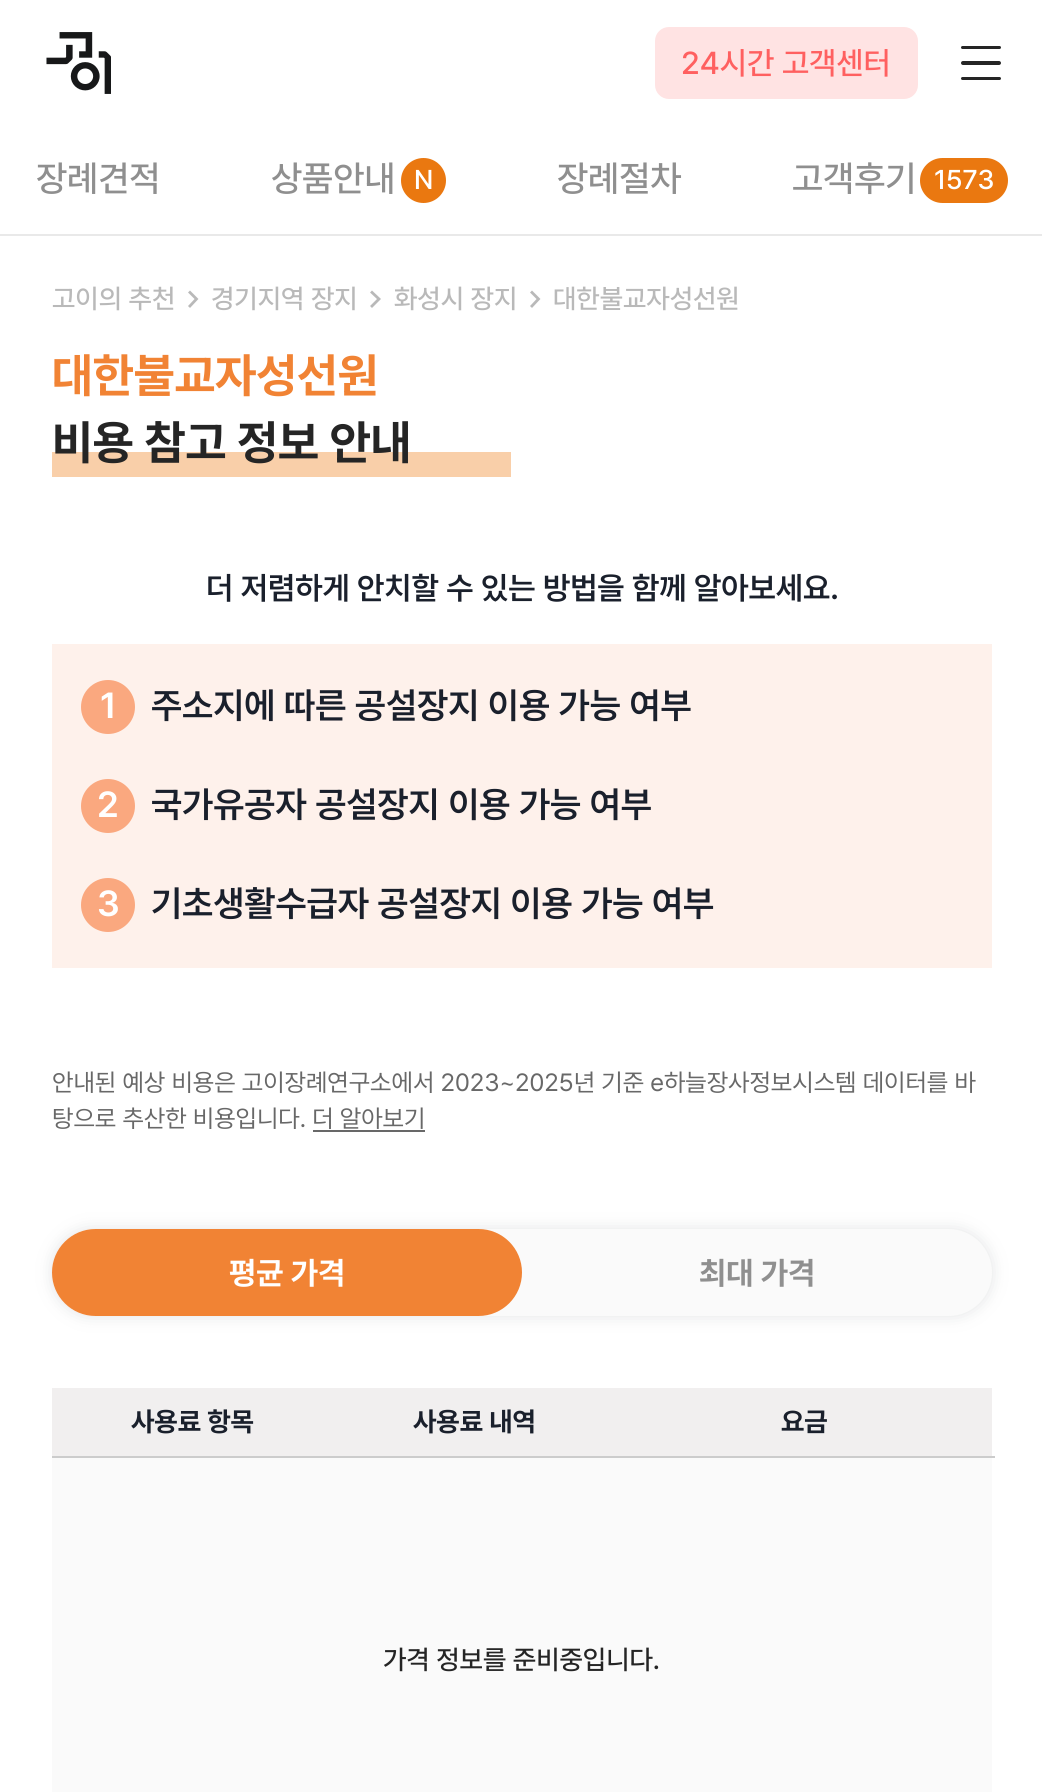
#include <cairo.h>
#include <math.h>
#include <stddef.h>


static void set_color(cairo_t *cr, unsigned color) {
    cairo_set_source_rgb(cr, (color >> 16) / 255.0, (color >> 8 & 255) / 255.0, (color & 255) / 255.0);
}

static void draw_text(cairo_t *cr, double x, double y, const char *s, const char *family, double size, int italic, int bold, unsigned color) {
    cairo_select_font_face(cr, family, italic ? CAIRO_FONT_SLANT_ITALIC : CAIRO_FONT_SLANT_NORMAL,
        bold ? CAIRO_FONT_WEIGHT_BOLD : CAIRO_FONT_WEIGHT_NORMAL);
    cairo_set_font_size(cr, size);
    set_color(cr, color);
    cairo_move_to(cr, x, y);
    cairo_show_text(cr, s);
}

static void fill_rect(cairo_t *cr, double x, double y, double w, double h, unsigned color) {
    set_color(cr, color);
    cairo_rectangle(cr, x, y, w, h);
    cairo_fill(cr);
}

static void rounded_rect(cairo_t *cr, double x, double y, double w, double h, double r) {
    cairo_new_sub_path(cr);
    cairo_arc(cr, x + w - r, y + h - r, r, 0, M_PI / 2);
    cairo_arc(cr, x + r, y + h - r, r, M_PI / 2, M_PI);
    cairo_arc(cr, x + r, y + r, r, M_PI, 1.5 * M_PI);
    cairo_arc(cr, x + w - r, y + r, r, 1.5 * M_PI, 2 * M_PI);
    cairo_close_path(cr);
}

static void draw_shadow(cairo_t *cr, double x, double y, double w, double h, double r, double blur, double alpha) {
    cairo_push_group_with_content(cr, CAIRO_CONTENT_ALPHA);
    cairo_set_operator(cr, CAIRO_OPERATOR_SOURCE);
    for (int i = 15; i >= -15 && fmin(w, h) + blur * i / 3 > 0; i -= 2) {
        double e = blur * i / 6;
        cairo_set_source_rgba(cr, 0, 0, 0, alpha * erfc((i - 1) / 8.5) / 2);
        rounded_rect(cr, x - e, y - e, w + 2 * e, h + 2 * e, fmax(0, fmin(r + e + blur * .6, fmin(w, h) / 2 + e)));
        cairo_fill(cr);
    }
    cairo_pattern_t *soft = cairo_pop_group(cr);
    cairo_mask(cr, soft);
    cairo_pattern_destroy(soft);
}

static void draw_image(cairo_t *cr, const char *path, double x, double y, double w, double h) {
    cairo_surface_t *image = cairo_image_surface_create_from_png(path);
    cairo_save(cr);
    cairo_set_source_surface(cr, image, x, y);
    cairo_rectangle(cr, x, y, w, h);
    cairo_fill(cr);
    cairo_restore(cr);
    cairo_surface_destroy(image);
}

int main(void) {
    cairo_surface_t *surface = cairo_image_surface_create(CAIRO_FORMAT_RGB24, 1042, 1792);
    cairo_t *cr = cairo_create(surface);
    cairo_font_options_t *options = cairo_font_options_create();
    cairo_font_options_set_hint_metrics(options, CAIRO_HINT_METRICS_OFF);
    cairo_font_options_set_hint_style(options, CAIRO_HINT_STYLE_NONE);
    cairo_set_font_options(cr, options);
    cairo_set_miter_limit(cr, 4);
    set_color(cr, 0xFFFFFF);
    cairo_paint(cr);
    draw_image(cr, "assets/img1.png", 46, 32, 65, 62);
    set_color(cr, 0xFFE3E3);
    rounded_rect(cr, 655, 27, 263, 72, 14);
    cairo_fill(cr);
    draw_text(cr, 681, 74, "24시간 고객센터", "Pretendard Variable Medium", 31.5, 0, 0, 0xFF6060);
    set_color(cr, 0x252525);
    rounded_rect(cr, 961, 46, 40, 3, 1.5);
    cairo_fill(cr);
    rounded_rect(cr, 961, 61, 40, 4, 2);
    cairo_fill(cr);
    rounded_rect(cr, 961, 77, 40, 3, 1.5);
    cairo_fill(cr);
    fill_rect(cr, 0, 234, 1042, 2, 0xE9E9E9);
    draw_text(cr, 36, 191, "장례견적", "Pretendard Variable Medium", 36, 0, 0, 0x8F8F8F);
    draw_text(cr, 271, 191, "상품안내", "Pretendard Variable Medium", 36, 0, 0, 0x8F8F8F);
    set_color(cr, 0xEA7810);
    cairo_new_path(cr);
    cairo_arc(cr, 423.5, 180.5, 22.5, 0, 2 * M_PI);
    cairo_fill(cr);
    draw_text(cr, 414, 189, "N", "Pretendard Variable Medium", 27, 0, 0, 0xFFFFFF);
    draw_text(cr, 557, 191, "장례절차", "Pretendard Variable Medium", 36, 0, 0, 0x8F8F8F);
    draw_text(cr, 792, 191, "고객후기", "Pretendard Variable Medium", 36, 0, 0, 0x8F8F8F);
    set_color(cr, 0xEA7810);
    rounded_rect(cr, 920, 158, 88, 45, 22.5);
    cairo_fill(cr);
    draw_text(cr, 934, 189, "1573", "Pretendard Variable Medium", 27, 0, 0, 0xFFFFFF);
    draw_text(cr, 52, 308, "고이의 추천", "Pretendard Variable Medium", 27, 0, 0, 0xB9B9B9);
    cairo_new_path(cr);
    cairo_move_to(cr, 189, 291.5);
    cairo_line_to(cr, 196.5, 299);
    cairo_line_to(cr, 189, 307);
    cairo_set_line_width(cr, 2.8);
    cairo_stroke(cr);
    draw_text(cr, 211, 308, "경기지역 장지", "Pretendard Variable Medium", 27, 0, 0, 0xB9B9B9);
    cairo_new_path(cr);
    cairo_move_to(cr, 371, 291.5);
    cairo_line_to(cr, 379, 299);
    cairo_line_to(cr, 371, 307);
    cairo_stroke(cr);
    draw_text(cr, 394, 308, "화성시 장지", "Pretendard Variable Medium", 27, 0, 0, 0xB9B9B9);
    cairo_new_path(cr);
    cairo_move_to(cr, 531, 291.5);
    cairo_line_to(cr, 538.5, 299);
    cairo_line_to(cr, 531, 307);
    cairo_stroke(cr);
    draw_text(cr, 553, 308, "대한불교자성선원", "Pretendard Variable Medium", 27, 0, 0, 0xB9B9B9);
    draw_text(cr, 52, 392, "대한불교자성선원", "Pretendard Variable", 47.25, 0, 1, 0xF18334);
    fill_rect(cr, 52, 452, 459, 25, 0xF9CFA9);
    draw_text(cr, 52, 459, "비용 참고 정보 안내", "Pretendard Variable", 47.25, 0, 1, 0x252525);
    draw_text(cr, 206, 599, "더 저렴하게 안치할 수 있는 방법을 함께 알아보세요.", "Pretendard Variable SemiBold", 31.5, 0, 0, 0x1A202C);
    fill_rect(cr, 52, 644, 940, 324, 0xFEF1EB);
    set_color(cr, 0xFAA87F);
    cairo_new_path(cr);
    cairo_arc(cr, 108, 707, 27, 0, 2 * M_PI);
    cairo_fill(cr);
    draw_text(cr, 100, 718, "1", "Pretendard Variable SemiBold", 36, 0, 0, 0xFFFFFF);
    draw_text(cr, 151, 718, "주소지에 따른 공설장지 이용 가능 여부", "Pretendard Variable SemiBold", 36, 0, 0, 0x1A202C);
    set_color(cr, 0xFAA87F);
    cairo_new_path(cr);
    cairo_arc(cr, 108, 806, 27, 0, 2 * M_PI);
    cairo_fill(cr);
    draw_text(cr, 97, 817, "2", "Pretendard Variable SemiBold", 36, 0, 0, 0xFFFFFF);
    draw_text(cr, 151, 817, "국가유공자 공설장지 이용 가능 여부", "Pretendard Variable SemiBold", 36, 0, 0, 0x1A202C);
    set_color(cr, 0xFAA87F);
    cairo_new_path(cr);
    cairo_arc(cr, 108, 905, 27, 0, 2 * M_PI);
    cairo_fill(cr);
    draw_text(cr, 97, 916, "3", "Pretendard Variable SemiBold", 36, 0, 0, 0xFFFFFF);
    draw_text(cr, 151, 916, "기초생활수급자 공설장지 이용 가능 여부", "Pretendard Variable SemiBold", 36, 0, 0, 0x1A202C);
    draw_text(cr, 52, 1091, "안내된 예상 비용은 고이장례연구소에서 2023~2025년 기준 e하늘장사정보시스템 데이터를 바", "Pretendard Variable", 24.75, 0, 0, 0x686868);
    draw_text(cr, 52, 1127, "탕으로 추산한 비용입니다. 더 알아보기", "Pretendard Variable", 24.75, 0, 0, 0x686868);
    fill_rect(cr, 313, 1130, 112, 2, 0x686868);
    set_color(cr, 0x71787D);
    draw_shadow(cr, 52, 1229, 940, 87, 43.5, 8, 0.2);
    set_color(cr, 0xFAFAFA);
    rounded_rect(cr, 52, 1229, 940, 87, 43.5);
    cairo_fill(cr);
    set_color(cr, 0xF18334);
    rounded_rect(cr, 52, 1229, 470, 87, 43.5);
    cairo_fill(cr);
    draw_text(cr, 229, 1284, "평균 가격", "Pretendard Variable", 31.5, 0, 1, 0xFFFFFF);
    draw_text(cr, 699, 1284, "최대 가격", "Pretendard Variable", 31.5, 0, 1, 0x8F8F8F);
    fill_rect(cr, 52, 1388, 940, 68, 0xF1EFEF);
    fill_rect(cr, 52, 1456, 943, 2, 0xCCCCCC);
    draw_text(cr, 131, 1431, "사용료 항목", "Pretendard Variable", 27, 0, 1, 0x1A202C);
    draw_text(cr, 413, 1431, "사용료 내역", "Pretendard Variable", 27, 0, 1, 0x1A202C);
    draw_text(cr, 781, 1431, "요금", "Pretendard Variable", 27, 0, 1, 0x1A202C);
    fill_rect(cr, 52, 1458, 940, 334, 0xFAFAFA);
    draw_text(cr, 383, 1669, "가격 정보를 준비중입니다.", "Pretendard Variable Medium", 27, 0, 0, 0x252525);
    cairo_surface_write_to_png(surface, "output.png");
    cairo_font_options_destroy(options);
    cairo_destroy(cr);
    cairo_surface_destroy(surface);
    return 0;
}
